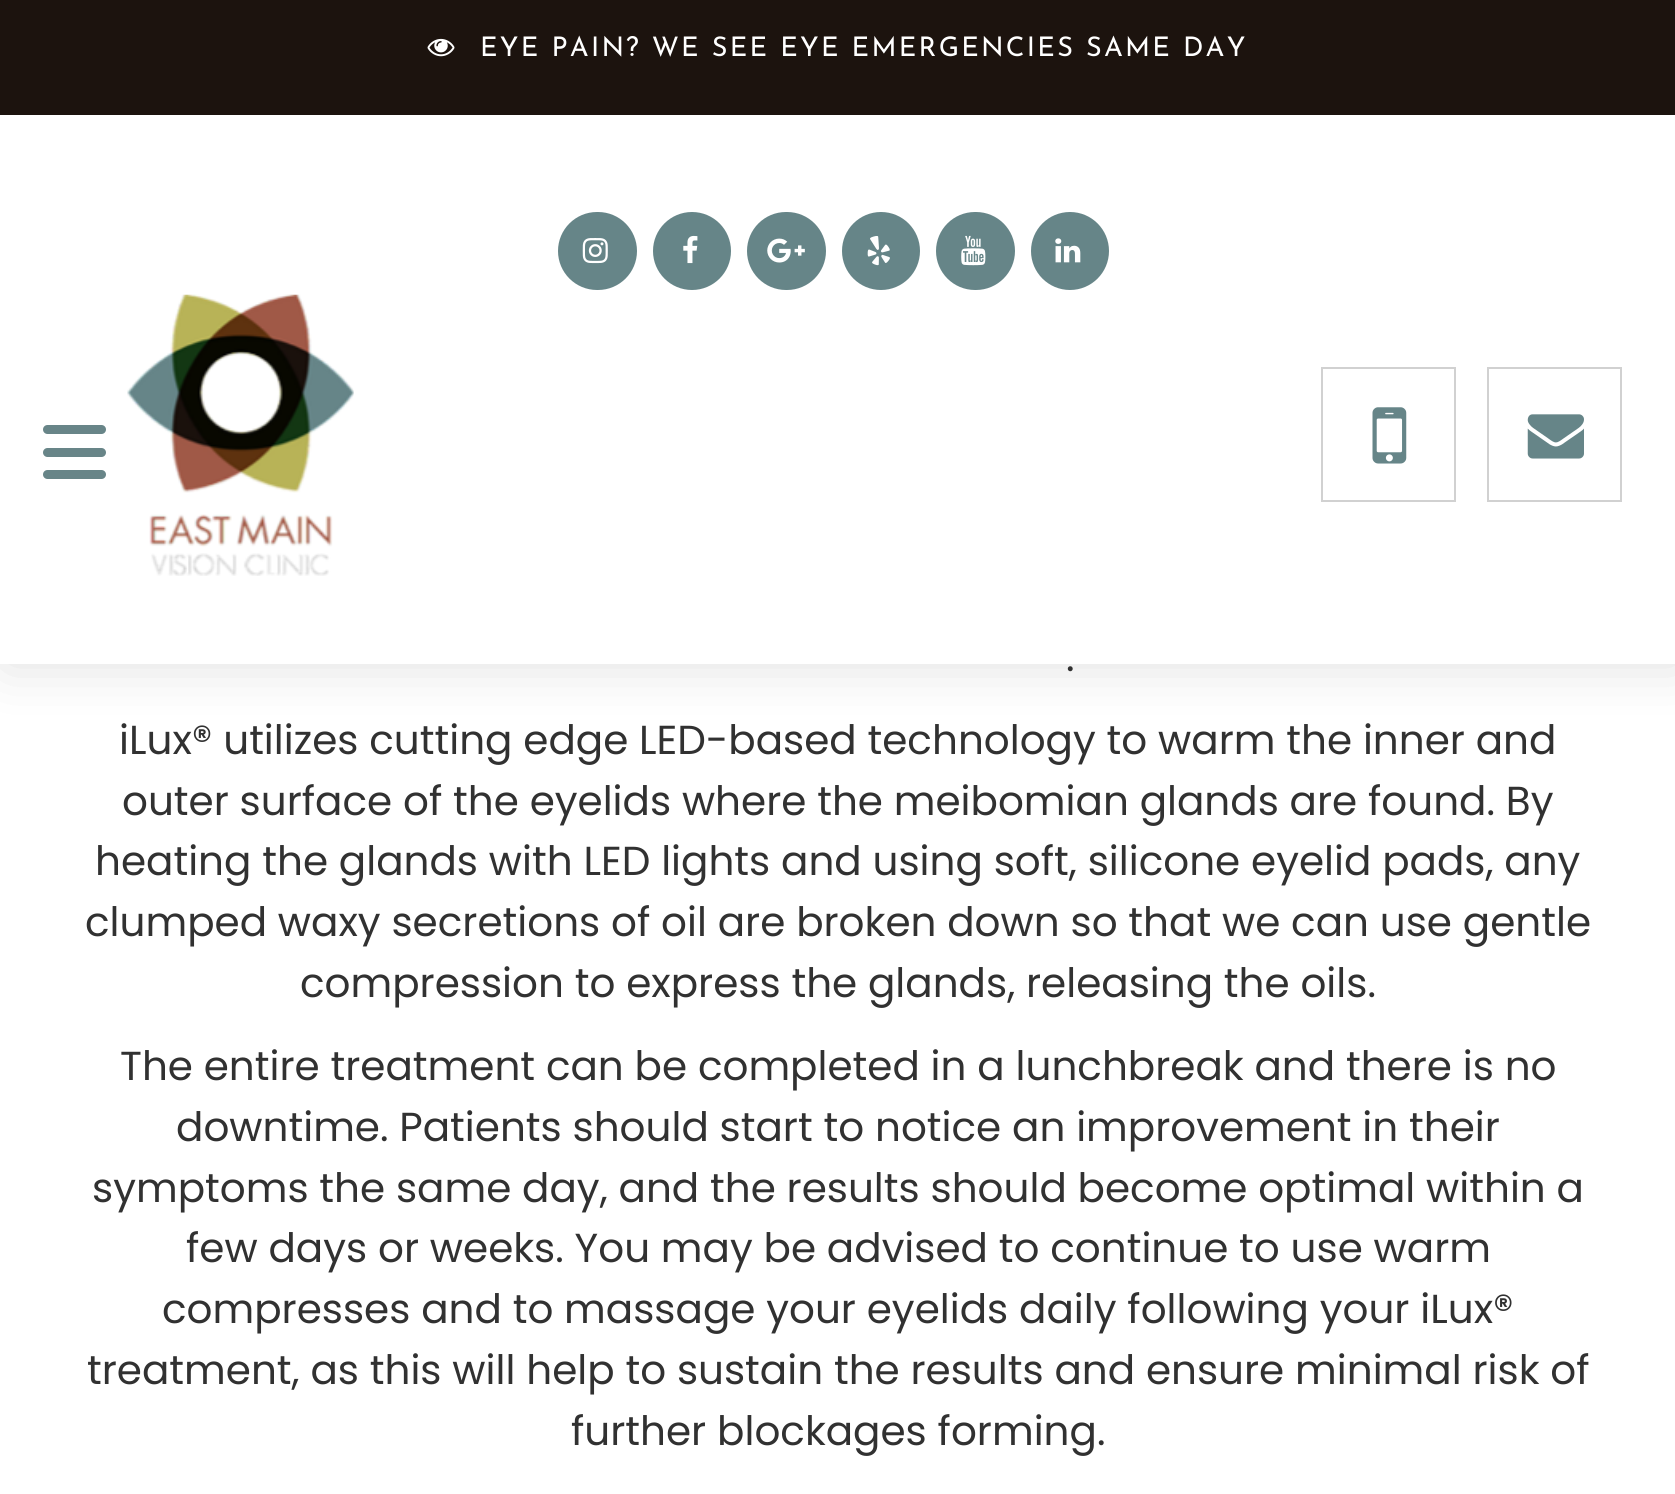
#include <cairo.h>
#include <math.h>
#include <stddef.h>


static void set_color(cairo_t *cr, unsigned color) {
    cairo_set_source_rgb(cr, (color >> 16) / 255.0, (color >> 8 & 255) / 255.0, (color & 255) / 255.0);
}

static void draw_text(cairo_t *cr, double x, double y, const char *s, const char *family, double size, int italic, int bold, unsigned color) {
    cairo_select_font_face(cr, family, italic ? CAIRO_FONT_SLANT_ITALIC : CAIRO_FONT_SLANT_NORMAL,
        bold ? CAIRO_FONT_WEIGHT_BOLD : CAIRO_FONT_WEIGHT_NORMAL);
    cairo_set_font_size(cr, size);
    set_color(cr, color);
    cairo_move_to(cr, x, y);
    cairo_show_text(cr, s);
}

static void draw_spaced(cairo_t *cr, double x, double y, const char *s, double letter, double word) {
    cairo_move_to(cr, x, y);
    while (*s) {
        char ch[5] = {0};
        int n = 0;
        do ch[n++] = *s++; while ((*s & 0xC0) == 0x80);
        cairo_show_text(cr, ch);
        cairo_rel_move_to(cr, letter + word * (*ch == ' '), 0);
    }
}

static void fill_rect(cairo_t *cr, double x, double y, double w, double h, unsigned color) {
    set_color(cr, color);
    cairo_rectangle(cr, x, y, w, h);
    cairo_fill(cr);
}

static void rounded_rect(cairo_t *cr, double x, double y, double w, double h, double r) {
    cairo_new_sub_path(cr);
    cairo_arc(cr, x + w - r, y + h - r, r, 0, M_PI / 2);
    cairo_arc(cr, x + r, y + h - r, r, M_PI / 2, M_PI);
    cairo_arc(cr, x + r, y + r, r, M_PI, 1.5 * M_PI);
    cairo_arc(cr, x + w - r, y + r, r, 1.5 * M_PI, 2 * M_PI);
    cairo_close_path(cr);
}

static void draw_shadow(cairo_t *cr, double x, double y, double w, double h, double r, double blur, double alpha) {
    cairo_push_group_with_content(cr, CAIRO_CONTENT_ALPHA);
    cairo_set_operator(cr, CAIRO_OPERATOR_SOURCE);
    for (int i = 15; i >= -15 && fmin(w, h) + blur * i / 3 > 0; i -= 2) {
        double e = blur * i / 6;
        cairo_set_source_rgba(cr, 0, 0, 0, alpha * erfc((i - 1) / 8.5) / 2);
        rounded_rect(cr, x - e, y - e, w + 2 * e, h + 2 * e, fmax(0, fmin(r + e + blur * .6, fmin(w, h) / 2 + e)));
        cairo_fill(cr);
    }
    cairo_pattern_t *soft = cairo_pop_group(cr);
    cairo_mask(cr, soft);
    cairo_pattern_destroy(soft);
}

static void draw_image(cairo_t *cr, const char *path, double x, double y, double w, double h) {
    cairo_surface_t *image = cairo_image_surface_create_from_png(path);
    cairo_save(cr);
    cairo_set_source_surface(cr, image, x, y);
    cairo_rectangle(cr, x, y, w, h);
    cairo_fill(cr);
    cairo_restore(cr);
    cairo_surface_destroy(image);
}

int main(void) {
    cairo_surface_t *surface = cairo_image_surface_create(CAIRO_FORMAT_RGB24, 1675, 1494);
    cairo_t *cr = cairo_create(surface);
    cairo_font_options_t *options = cairo_font_options_create();
    cairo_font_options_set_hint_metrics(options, CAIRO_HINT_METRICS_OFF);
    cairo_font_options_set_hint_style(options, CAIRO_HINT_STYLE_NONE);
    cairo_set_font_options(cr, options);
    cairo_set_miter_limit(cr, 4);
    set_color(cr, 0xFFFFFF);
    cairo_paint(cr);
    set_color(cr, 0x000000);
    draw_shadow(cr, 5, -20, 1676, 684, 0, 28, 0.13);
    fill_rect(cr, 0, 115, 1675, 549, 0xFFFFFF);
    fill_rect(cr, 0, 0, 1675, 115, 0x1C130E);
    draw_image(cr, "assets/img1.png", 427, 38, 28, 19);
    cairo_select_font_face(cr, "Josefin Sans", CAIRO_FONT_SLANT_NORMAL, CAIRO_FONT_WEIGHT_NORMAL);
    cairo_set_font_size(cr, 27);
    set_color(cr, 0xFFFFFF);
    draw_spaced(cr, 480, 56, "EYE PAIN? WE SEE EYE EMERGENCIES SAME DAY", 2.25, 0);
    set_color(cr, 0x668588);
    rounded_rect(cr, 558, 212, 79, 78, 39);
    cairo_fill(cr);
    draw_image(cr, "assets/img2.png", 582, 238, 26, 26);
    cairo_arc(cr, 692, 251, 39, 0, 2 * M_PI);
    cairo_fill(cr);
    draw_image(cr, "assets/img3.png", 683, 235, 15, 29);
    rounded_rect(cr, 747, 212, 79, 78, 39);
    cairo_fill(cr);
    draw_image(cr, "assets/img4.png", 767, 238, 38, 25);
    cairo_arc(cr, 881, 251, 39, 0, 2 * M_PI);
    cairo_fill(cr);
    draw_image(cr, "assets/img5.png", 867, 236, 23, 30);
    rounded_rect(cr, 936, 212, 79, 78, 39);
    cairo_fill(cr);
    draw_image(cr, "assets/img6.png", 961, 235, 25, 31);
    cairo_arc(cr, 1070, 251, 39, 0, 2 * M_PI);
    cairo_fill(cr);
    draw_image(cr, "assets/img7.png", 1055, 238, 26, 25);
    set_color(cr, 0x688588);
    rounded_rect(cr, 43, 470, 63, 9, 4.5);
    cairo_fill(cr);
    rounded_rect(cr, 43, 425, 63, 9, 4.5);
    cairo_fill(cr);
    rounded_rect(cr, 43, 448, 63, 9, 4.5);
    cairo_fill(cr);
    draw_image(cr, "assets/img8.png", 127, 294, 227, 282);
    cairo_rectangle(cr, 1322, 368, 133, 133);
    set_color(cr, 0xD1D1D1);
    cairo_stroke(cr);
    draw_image(cr, "assets/img9.png", 1372, 407, 35, 57);
    cairo_rectangle(cr, 1488, 368, 133, 133);
    cairo_stroke(cr);
    draw_image(cr, "assets/img10.png", 1527, 414, 57, 45);
    draw_text(cr, 1066, 671, ".", "Poppins", 40.5, 0, 0, 0x313131);
    draw_text(cr, 119, 754, "iLux® utilizes cutting edge LED-based technology to warm the inner and", "Poppins", 40.5, 0, 0, 0x313131);
    draw_text(cr, 122, 815, "outer surface of the eyelids where the meibomian glands are found. By", "Poppins", 40.5, 0, 0, 0x313131);
    draw_text(cr, 95, 875, "heating the glands with LED lights and using soft, silicone eyelid pads, any", "Poppins", 40.5, 0, 0, 0x313131);
    draw_text(cr, 85, 936, "clumped waxy secretions of oil are broken down so that we can use gentle", "Poppins", 40.5, 0, 0, 0x313131);
    draw_text(cr, 300, 997, "compression to express the glands, releasing the oils.", "Poppins", 40.5, 0, 0, 0x313131);
    draw_text(cr, 120, 1080, "The entire treatment can be completed in a lunchbreak and there is no", "Poppins", 40.5, 0, 0, 0x313131);
    draw_text(cr, 176, 1141, "downtime. Patients should start to notice an improvement in their", "Poppins", 40.5, 0, 0, 0x313131);
    draw_text(cr, 92, 1202, "symptoms the same day, and the results should become optimal within a", "Poppins", 40.5, 0, 0, 0x313131);
    draw_text(cr, 186, 1262, "few days or weeks. You may be advised to continue to use warm", "Poppins", 40.5, 0, 0, 0x313131);
    draw_text(cr, 162, 1323, "compresses and to massage your eyelids daily following your iLux®", "Poppins", 40.5, 0, 0, 0x313131);
    draw_text(cr, 87, 1384, "treatment, as this will help to sustain the results and ensure minimal risk of", "Poppins", 40.5, 0, 0, 0x313131);
    draw_text(cr, 571, 1445, "further blockages forming.", "Poppins", 40.5, 0, 0, 0x313131);
    cairo_surface_write_to_png(surface, "output.png");
    cairo_font_options_destroy(options);
    cairo_destroy(cr);
    cairo_surface_destroy(surface);
    return 0;
}
